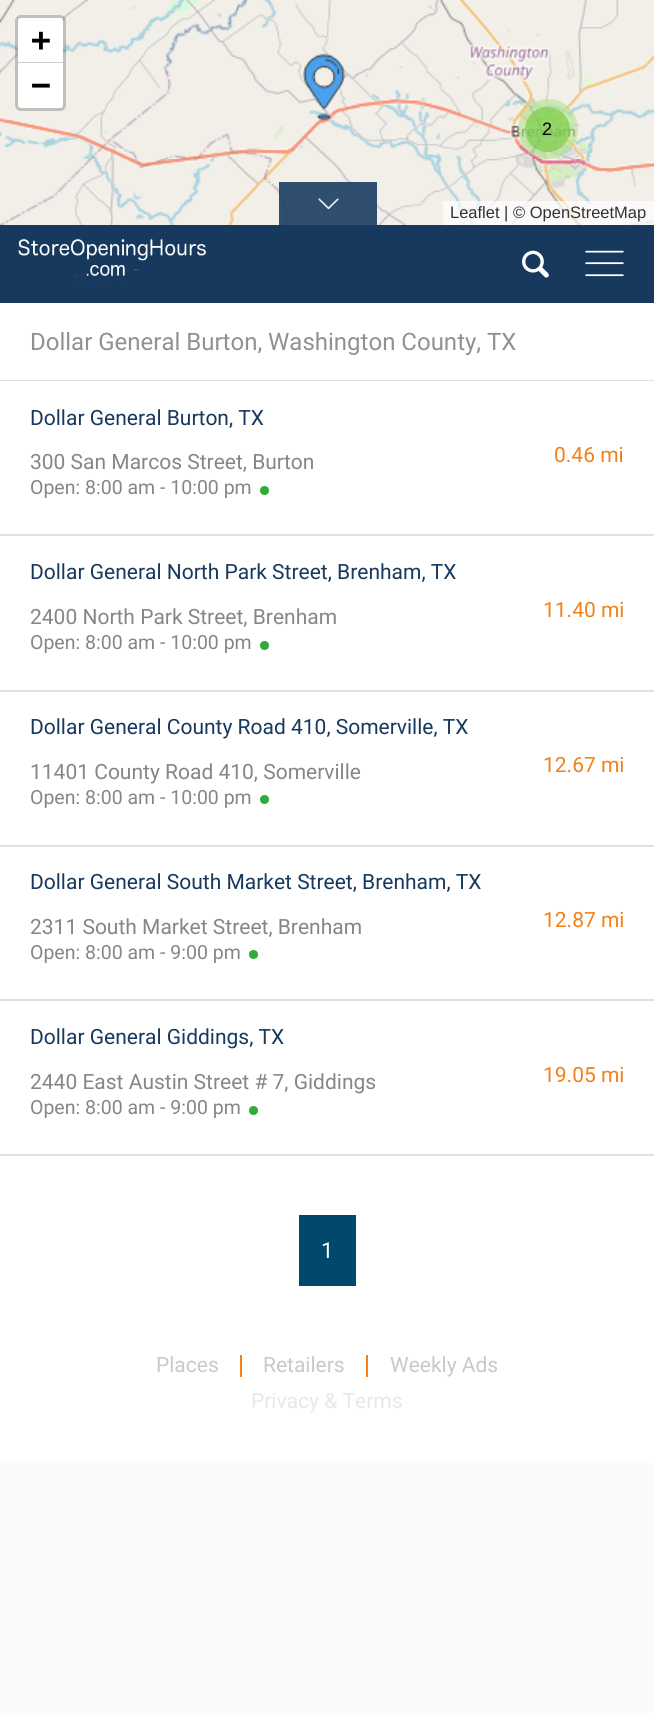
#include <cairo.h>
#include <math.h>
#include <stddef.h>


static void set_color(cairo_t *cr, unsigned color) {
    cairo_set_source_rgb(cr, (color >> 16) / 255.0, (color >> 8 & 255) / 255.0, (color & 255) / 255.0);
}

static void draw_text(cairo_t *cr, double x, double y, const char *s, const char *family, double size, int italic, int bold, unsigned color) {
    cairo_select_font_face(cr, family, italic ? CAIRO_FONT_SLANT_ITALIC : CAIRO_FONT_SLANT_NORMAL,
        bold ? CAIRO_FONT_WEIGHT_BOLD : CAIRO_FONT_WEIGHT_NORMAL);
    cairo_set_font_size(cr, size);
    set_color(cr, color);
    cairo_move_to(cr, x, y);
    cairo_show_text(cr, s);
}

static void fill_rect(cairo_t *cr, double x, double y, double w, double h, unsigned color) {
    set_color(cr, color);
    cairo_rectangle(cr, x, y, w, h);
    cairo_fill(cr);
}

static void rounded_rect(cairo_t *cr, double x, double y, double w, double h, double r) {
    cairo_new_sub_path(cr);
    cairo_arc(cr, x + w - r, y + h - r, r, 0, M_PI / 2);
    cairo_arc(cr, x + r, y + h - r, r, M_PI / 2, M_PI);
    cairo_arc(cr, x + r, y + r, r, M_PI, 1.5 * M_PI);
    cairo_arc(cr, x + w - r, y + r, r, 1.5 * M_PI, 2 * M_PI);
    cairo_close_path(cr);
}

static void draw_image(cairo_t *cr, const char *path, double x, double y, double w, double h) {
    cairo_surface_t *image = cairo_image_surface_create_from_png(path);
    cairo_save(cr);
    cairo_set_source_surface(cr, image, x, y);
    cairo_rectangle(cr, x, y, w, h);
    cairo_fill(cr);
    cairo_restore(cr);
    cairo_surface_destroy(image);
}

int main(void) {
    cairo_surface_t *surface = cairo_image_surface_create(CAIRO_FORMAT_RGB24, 654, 1713);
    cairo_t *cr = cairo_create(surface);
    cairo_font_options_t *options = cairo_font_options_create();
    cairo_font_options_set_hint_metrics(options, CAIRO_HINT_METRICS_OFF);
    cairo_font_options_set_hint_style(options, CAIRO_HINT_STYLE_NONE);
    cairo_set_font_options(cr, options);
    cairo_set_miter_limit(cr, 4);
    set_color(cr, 0xFAFAFA);
    cairo_paint(cr);
    draw_image(cr, "assets/img1.png", 0, 0, 236, 159);
    rounded_rect(cr, 16.5, 16.5, 48, 93, 4.5);
    cairo_set_source_rgba(cr, 0, 0, 0, 0.2);
    cairo_set_line_width(cr, 3);
    cairo_stroke(cr);
    set_color(cr, 0xFFFFFF);
    cairo_new_path(cr);
    cairo_move_to(cr, 21, 18);
    cairo_line_to(cr, 60, 18);
    cairo_curve_to(cr, 61.5, 18, 63, 19.5, 63, 21);
    cairo_line_to(cr, 63, 63);
    cairo_line_to(cr, 18, 63);
    cairo_line_to(cr, 18, 21);
    cairo_curve_to(cr, 18, 19.5, 19.5, 18, 21, 18);
    cairo_close_path(cr);
    cairo_fill(cr);
    fill_rect(cr, 18, 62, 45, 1, 0xCCCCCC);
    draw_text(cr, 31, 51, "+", "DejaVu Sans Mono", 33, 0, 1, 0x000000);
    set_color(cr, 0xFFFFFF);
    cairo_new_path(cr);
    cairo_move_to(cr, 18, 63);
    cairo_line_to(cr, 63, 63);
    cairo_line_to(cr, 63, 105);
    cairo_curve_to(cr, 63, 106.5, 61.5, 108, 60, 108);
    cairo_line_to(cr, 21, 108);
    cairo_curve_to(cr, 19.5, 108, 18, 106.5, 18, 105);
    cairo_close_path(cr);
    cairo_fill(cr);
    draw_text(cr, 31, 96, "−", "DejaVu Sans Mono", 33, 0, 1, 0x000000);
    draw_image(cr, "assets/img5.png", 236, 159, 384, 66);
    draw_image(cr, "assets/img6.png", 620, 159, 34, 66);
    cairo_set_source_rgba(cr, 1, 1, 1, 0.7);
    cairo_rectangle(cr, 443, 201, 211, 24);
    cairo_fill(cr);
    draw_text(cr, 450, 218, "Leaflet | © OpenStreetMap", "Liberation Sans", 16.5, 0, 0, 0x333333);
    draw_image(cr, "assets/img2.png", 236, 0, 384, 159);
    draw_image(cr, "assets/img3.png", 620, 0, 34, 159);
    draw_image(cr, "assets/img4.png", 0, 159, 236, 66);
    draw_image(cr, "assets/img7.png", 0, 68, 1, 7);
    draw_image(cr, "assets/img8.png", 302, 53, 44, 68);
    cairo_set_source_rgba(cr, 0.71, 0.886, 0.549, 0.6);
    cairo_arc(cr, 548, 129, 30, 0, 2 * M_PI);
    cairo_fill(cr);
    cairo_set_source_rgba(cr, 0.431, 0.8, 0.224, 0.6);
    cairo_arc(cr, 547.5, 129.5, 22.5, 0, 2 * M_PI);
    cairo_fill(cr);
    draw_text(cr, 542, 135, "2", "Liberation Sans", 18, 0, 0, 0x000000);
    fill_rect(cr, 0, 225, 654, 78, 0x17395E);
    draw_image(cr, "assets/img9.png", 18, 239, 189, 43);
    draw_image(cr, "assets/img10.png", 522, 250, 27, 28);
    draw_image(cr, "assets/img11.png", 585, 250, 39, 27);
    fill_rect(cr, 0, 303, 654, 1160, 0xFFFFFF);
    cairo_set_source_rgba(cr, 0.09, 0.224, 0.369, 0.88);
    cairo_rectangle(cr, 279, 182, 98, 43);
    cairo_fill(cr);
    draw_image(cr, "assets/img12.png", 318, 198, 21, 12);
    fill_rect(cr, 0, 380, 654, 1, 0xE0E0E0);
    draw_text(cr, 30, 350, "Dollar General Burton, Washington County, TX", "Roboto", 24, 0, 0, 0x919191);
    fill_rect(cr, 0, 534, 654, 2, 0xE0E0E0);
    draw_text(cr, 30, 425, "Dollar General Burton, TX", "Roboto", 21, 0, 0, 0x17395E);
    draw_text(cr, 30, 469, "300 San Marcos Street, Burton", "Roboto", 21, 0, 0, 0x868686);
    draw_text(cr, 554, 462, "0.46 mi", "Roboto", 21, 0, 0, 0xF38118);
    draw_text(cr, 30, 494, "Open: 8:00 am - 10:00 pm", "Roboto", 19.5, 0, 0, 0x868686);
    set_color(cr, 0x31AA3A);
    cairo_new_path(cr);
    cairo_arc(cr, 264.5, 490.5, 4.5, 0, 2 * M_PI);
    cairo_fill(cr);
    fill_rect(cr, 0, 690, 654, 2, 0xE0E0E0);
    draw_text(cr, 30, 579, "Dollar General North Park Street, Brenham, TX", "Roboto", 21, 0, 0, 0x17395E);
    draw_text(cr, 30, 624, "2400 North Park Street, Brenham", "Roboto", 21, 0, 0, 0x868686);
    draw_text(cr, 543, 617, "11.40 mi", "Roboto", 21, 0, 0, 0xF38118);
    draw_text(cr, 30, 649, "Open: 8:00 am - 10:00 pm", "Roboto", 19.5, 0, 0, 0x868686);
    set_color(cr, 0x31AA3A);
    cairo_new_path(cr);
    cairo_arc(cr, 264.5, 645.5, 4.5, 0, 2 * M_PI);
    cairo_fill(cr);
    fill_rect(cr, 0, 845, 654, 2, 0xE0E0E0);
    draw_text(cr, 30, 734, "Dollar General County Road 410, Somerville, TX", "Roboto", 21, 0, 0, 0x17395E);
    draw_text(cr, 30, 779, "11401 County Road 410, Somerville", "Roboto", 21, 0, 0, 0x868686);
    draw_text(cr, 543, 772, "12.67 mi", "Roboto", 21, 0, 0, 0xF38118);
    draw_text(cr, 30, 804, "Open: 8:00 am - 10:00 pm", "Roboto", 19.5, 0, 0, 0x868686);
    set_color(cr, 0x31AA3A);
    cairo_new_path(cr);
    cairo_arc(cr, 264.5, 799.5, 4.5, 0, 2 * M_PI);
    cairo_fill(cr);
    fill_rect(cr, 0, 999, 654, 2, 0xE0E0E0);
    draw_text(cr, 30, 889, "Dollar General South Market Street, Brenham, TX", "Roboto", 21, 0, 0, 0x17395E);
    draw_text(cr, 30, 934, "2311 South Market Street, Brenham", "Roboto", 21, 0, 0, 0x868686);
    draw_text(cr, 543, 927, "12.87 mi", "Roboto", 21, 0, 0, 0xF38118);
    draw_text(cr, 30, 959, "Open: 8:00 am - 9:00 pm", "Roboto", 19.5, 0, 0, 0x868686);
    set_color(cr, 0x31AA3A);
    cairo_new_path(cr);
    cairo_arc(cr, 253.5, 954.5, 4.5, 0, 2 * M_PI);
    cairo_fill(cr);
    fill_rect(cr, 0, 1154, 654, 2, 0xE0E0E0);
    draw_text(cr, 30, 1044, "Dollar General Giddings, TX", "Roboto", 21, 0, 0, 0x17395E);
    draw_text(cr, 30, 1089, "2440 East Austin Street # 7, Giddings", "Roboto", 21, 0, 0, 0x868686);
    draw_text(cr, 543, 1082, "19.05 mi", "Roboto", 21, 0, 0, 0xF38118);
    draw_text(cr, 30, 1114, "Open: 8:00 am - 9:00 pm", "Roboto", 19.5, 0, 0, 0x868686);
    set_color(cr, 0x31AA3A);
    cairo_new_path(cr);
    cairo_arc(cr, 253.5, 1110.5, 4.5, 0, 2 * M_PI);
    cairo_fill(cr);
    fill_rect(cr, 299, 1215, 57, 71, 0x00496C);
    draw_text(cr, 321, 1258, "1", "Roboto", 22, 0, 0, 0xFFFFFF);
    draw_text(cr, 156, 1372, "Places", "Roboto", 21, 0, 0, 0xC9C9C9);
    fill_rect(cr, 240, 1355, 2, 22, 0xF38118);
    draw_text(cr, 263, 1372, "Retailers", "Roboto", 21, 0, 0, 0xC9C9C9);
    fill_rect(cr, 366, 1355, 2, 22, 0xF38118);
    draw_text(cr, 390, 1372, "Weekly Ads", "Roboto", 21, 0, 0, 0xC9C9C9);
    draw_text(cr, 251, 1408, "Privacy & Terms", "Roboto", 21, 0, 0, 0xE8E8E8);
    cairo_surface_write_to_png(surface, "output.png");
    cairo_font_options_destroy(options);
    cairo_destroy(cr);
    cairo_surface_destroy(surface);
    return 0;
}
